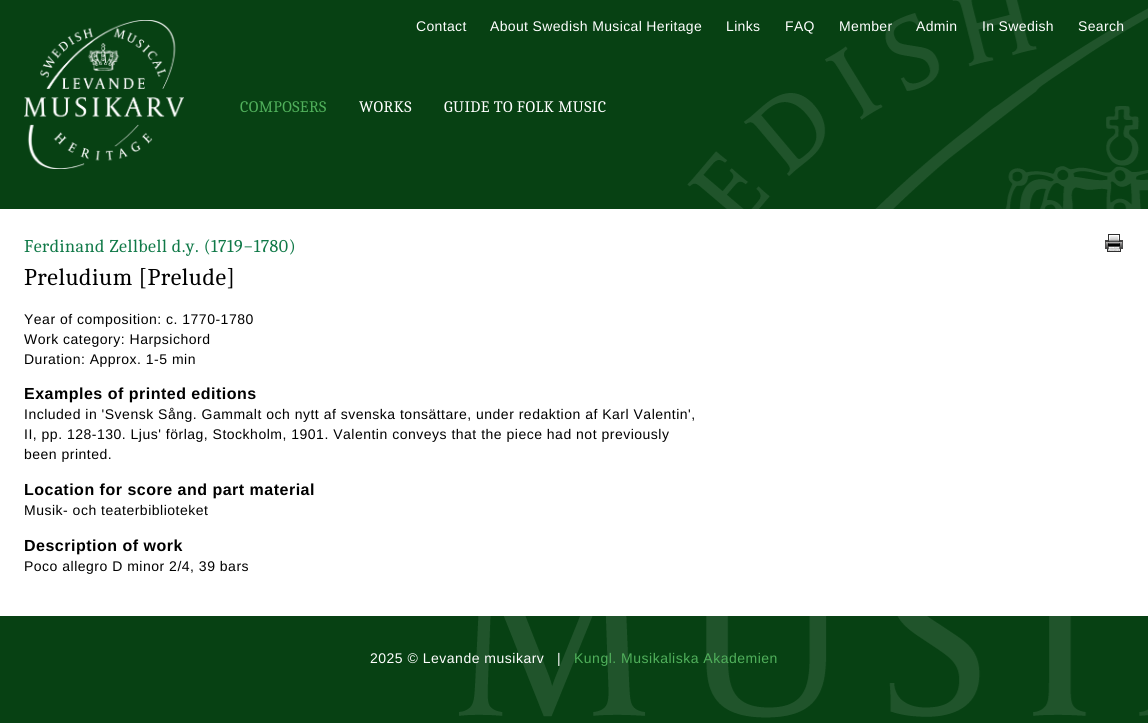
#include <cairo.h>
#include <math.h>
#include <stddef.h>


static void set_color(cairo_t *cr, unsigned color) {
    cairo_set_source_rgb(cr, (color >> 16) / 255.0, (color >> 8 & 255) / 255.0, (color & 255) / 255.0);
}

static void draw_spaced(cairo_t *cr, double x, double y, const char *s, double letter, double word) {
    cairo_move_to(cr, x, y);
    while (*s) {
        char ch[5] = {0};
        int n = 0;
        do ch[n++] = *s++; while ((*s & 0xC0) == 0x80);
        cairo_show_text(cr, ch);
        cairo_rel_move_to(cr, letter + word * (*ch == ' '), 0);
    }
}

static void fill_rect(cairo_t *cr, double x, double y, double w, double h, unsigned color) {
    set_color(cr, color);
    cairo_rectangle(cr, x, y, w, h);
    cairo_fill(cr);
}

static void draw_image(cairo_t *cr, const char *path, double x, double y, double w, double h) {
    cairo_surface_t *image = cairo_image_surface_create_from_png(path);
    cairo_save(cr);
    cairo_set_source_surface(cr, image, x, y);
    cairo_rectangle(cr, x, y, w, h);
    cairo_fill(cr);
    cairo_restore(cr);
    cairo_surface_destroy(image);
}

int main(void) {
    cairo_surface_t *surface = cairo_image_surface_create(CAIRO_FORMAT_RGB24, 1148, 723);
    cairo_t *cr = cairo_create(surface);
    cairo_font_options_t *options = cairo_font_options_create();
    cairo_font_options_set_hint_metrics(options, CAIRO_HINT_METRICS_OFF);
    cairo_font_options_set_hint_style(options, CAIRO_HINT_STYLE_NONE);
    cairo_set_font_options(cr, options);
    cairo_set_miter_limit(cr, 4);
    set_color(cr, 0x074113);
    cairo_paint(cr);
    draw_image(cr, "assets/img1.png", 459, 0, 689, 718);
    draw_image(cr, "assets/img2.png", 24, 20, 160, 149);
    cairo_select_font_face(cr, "Liberation Sans", CAIRO_FONT_SLANT_NORMAL, CAIRO_FONT_WEIGHT_NORMAL);
    cairo_set_font_size(cr, 14);
    set_color(cr, 0xFFFFFF);
    draw_spaced(cr, 416, 31, "Contact", 0.35, 0);
    draw_spaced(cr, 490, 31, "About Swedish Musical Heritage", 0.35, 0);
    draw_spaced(cr, 726, 31, "Links", 0.35, 0);
    draw_spaced(cr, 785, 31, "FAQ", 0.35, 0);
    draw_spaced(cr, 839, 31, "Member", 0.35, 0);
    draw_spaced(cr, 916, 31, "Admin", 0.35, 0);
    draw_spaced(cr, 982, 31, "In Swedish", 0.35, 0);
    draw_spaced(cr, 1078, 31, "Search", 0.35, 0);
    cairo_select_font_face(cr, "Caladea", CAIRO_FONT_SLANT_NORMAL, CAIRO_FONT_WEIGHT_NORMAL);
    cairo_set_font_size(cr, 16);
    set_color(cr, 0x50B05B);
    draw_spaced(cr, 240, 112, "COMPOSERS", 0.4, 0);
    set_color(cr, 0xFFFFFF);
    draw_spaced(cr, 359, 112, "WORKS", 0.4, 0);
    draw_spaced(cr, 444, 112, "GUIDE TO FOLK MUSIC", 0.4, 0);
    fill_rect(cr, 0, 209, 1148, 407, 0xFFFFFF);
    cairo_set_font_size(cr, 18);
    set_color(cr, 0x107948);
    draw_spaced(cr, 24, 252, "Ferdinand Zellbell d.y. (1719−1780)", 0.5, 0);
    draw_image(cr, "assets/img3.png", 1105, 234, 18, 18);
    cairo_set_font_size(cr, 24);
    set_color(cr, 0x000000);
    draw_spaced(cr, 24, 285, "Preludium [Prelude]", 0.5, 0);
    cairo_select_font_face(cr, "Liberation Sans", CAIRO_FONT_SLANT_NORMAL, CAIRO_FONT_WEIGHT_NORMAL);
    cairo_set_font_size(cr, 14);
    draw_spaced(cr, 24, 324, "Year of composition: c. 1770-1780", 0.5, 0);
    draw_spaced(cr, 24, 344, "Work category: Harpsichord", 0.5, 0);
    draw_spaced(cr, 24, 364, "Duration: Approx. 1-5 min", 0.5, 0);
    cairo_select_font_face(cr, "Liberation Sans", CAIRO_FONT_SLANT_NORMAL, CAIRO_FONT_WEIGHT_BOLD);
    cairo_set_font_size(cr, 16);
    draw_spaced(cr, 24, 399, "Examples of printed editions", 0.5, 0);
    cairo_select_font_face(cr, "Liberation Sans", CAIRO_FONT_SLANT_NORMAL, CAIRO_FONT_WEIGHT_NORMAL);
    cairo_set_font_size(cr, 14);
    draw_spaced(cr, 24, 419, "Included in 'Svensk Sång. Gammalt och nytt af svenska tonsättare, under redaktion af Karl Valentin',", 0.5, 0);
    draw_spaced(cr, 24, 439, "II, pp. 128-130. Ljus' förlag, Stockholm, 1901. Valentin conveys that the piece had not previously", 0.5, 0);
    draw_spaced(cr, 24, 459, "been printed.", 0.5, 0);
    cairo_select_font_face(cr, "Liberation Sans", CAIRO_FONT_SLANT_NORMAL, CAIRO_FONT_WEIGHT_BOLD);
    cairo_set_font_size(cr, 16);
    draw_spaced(cr, 24, 495, "Location for score and part material", 0.5, 0);
    cairo_select_font_face(cr, "Liberation Sans", CAIRO_FONT_SLANT_NORMAL, CAIRO_FONT_WEIGHT_NORMAL);
    cairo_set_font_size(cr, 14);
    draw_spaced(cr, 24, 515, "Musik- och teaterbiblioteket", 0.5, 0);
    cairo_select_font_face(cr, "Liberation Sans", CAIRO_FONT_SLANT_NORMAL, CAIRO_FONT_WEIGHT_BOLD);
    cairo_set_font_size(cr, 16);
    draw_spaced(cr, 24, 551, "Description of work", 0.5, 0);
    cairo_select_font_face(cr, "Liberation Sans", CAIRO_FONT_SLANT_NORMAL, CAIRO_FONT_WEIGHT_NORMAL);
    cairo_set_font_size(cr, 14);
    draw_spaced(cr, 24, 571, "Poco allegro D minor 2/4, 39 bars", 0.5, 0);
    set_color(cr, 0xFFFFFF);
    draw_spaced(cr, 370, 663, "2025 © Levande musikarv", 0.5, 0);
    draw_spaced(cr, 557, 663, "|", 0.5, 0);
    set_color(cr, 0x50B05B);
    draw_spaced(cr, 574, 663, "Kungl. Musikaliska Akademien", 0.5, 0);
    cairo_surface_write_to_png(surface, "output.png");
    cairo_font_options_destroy(options);
    cairo_destroy(cr);
    cairo_surface_destroy(surface);
    return 0;
}
